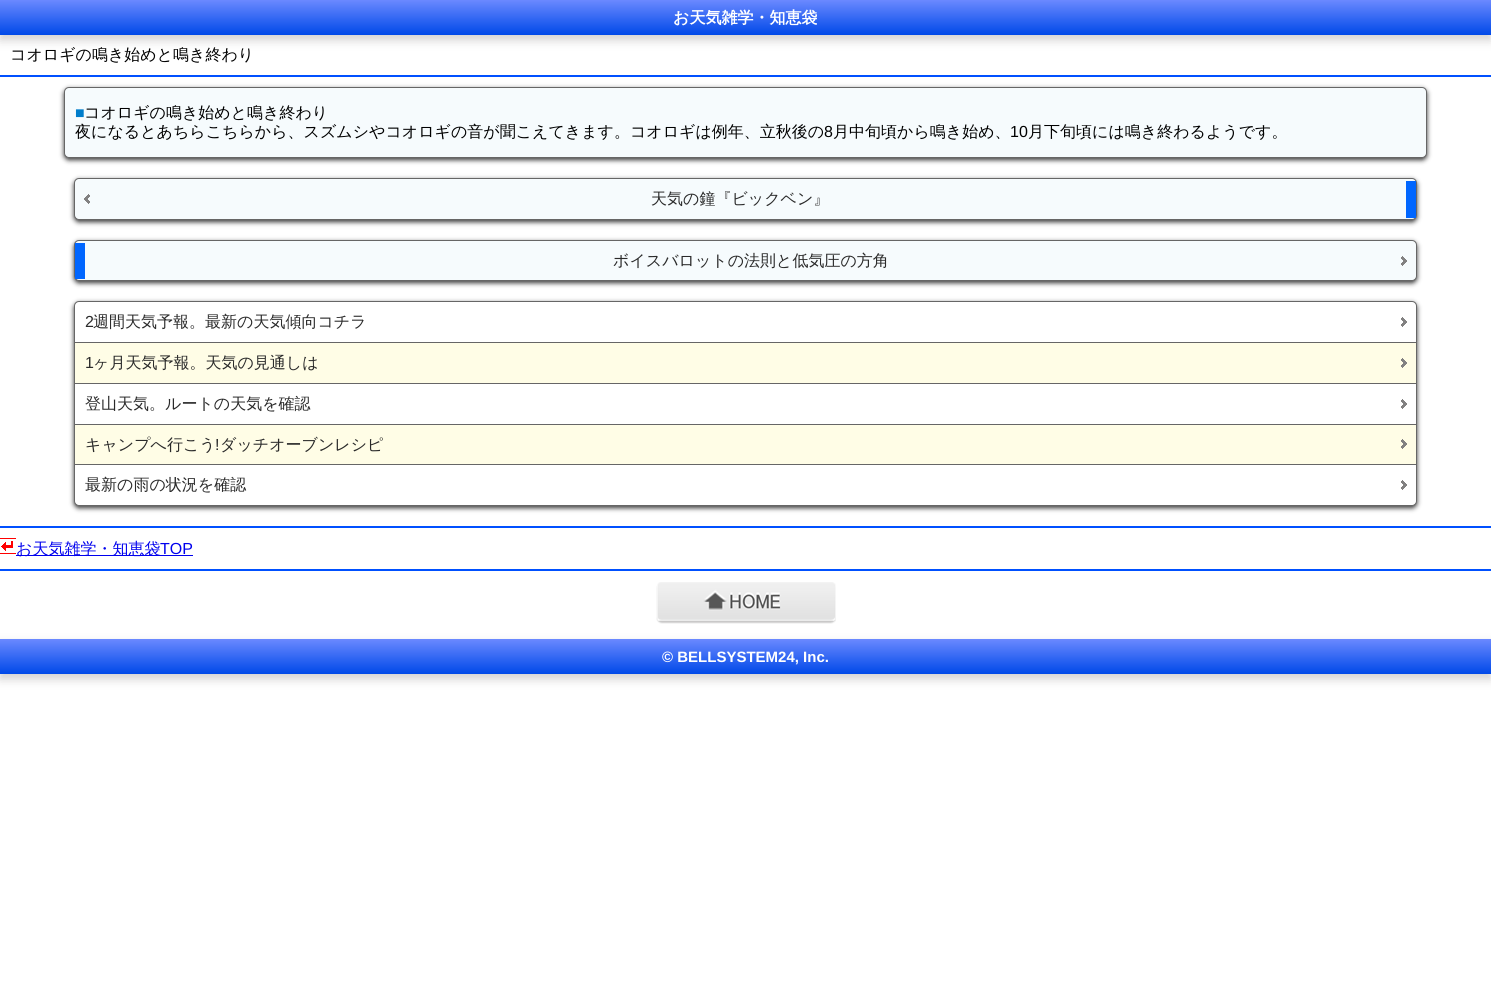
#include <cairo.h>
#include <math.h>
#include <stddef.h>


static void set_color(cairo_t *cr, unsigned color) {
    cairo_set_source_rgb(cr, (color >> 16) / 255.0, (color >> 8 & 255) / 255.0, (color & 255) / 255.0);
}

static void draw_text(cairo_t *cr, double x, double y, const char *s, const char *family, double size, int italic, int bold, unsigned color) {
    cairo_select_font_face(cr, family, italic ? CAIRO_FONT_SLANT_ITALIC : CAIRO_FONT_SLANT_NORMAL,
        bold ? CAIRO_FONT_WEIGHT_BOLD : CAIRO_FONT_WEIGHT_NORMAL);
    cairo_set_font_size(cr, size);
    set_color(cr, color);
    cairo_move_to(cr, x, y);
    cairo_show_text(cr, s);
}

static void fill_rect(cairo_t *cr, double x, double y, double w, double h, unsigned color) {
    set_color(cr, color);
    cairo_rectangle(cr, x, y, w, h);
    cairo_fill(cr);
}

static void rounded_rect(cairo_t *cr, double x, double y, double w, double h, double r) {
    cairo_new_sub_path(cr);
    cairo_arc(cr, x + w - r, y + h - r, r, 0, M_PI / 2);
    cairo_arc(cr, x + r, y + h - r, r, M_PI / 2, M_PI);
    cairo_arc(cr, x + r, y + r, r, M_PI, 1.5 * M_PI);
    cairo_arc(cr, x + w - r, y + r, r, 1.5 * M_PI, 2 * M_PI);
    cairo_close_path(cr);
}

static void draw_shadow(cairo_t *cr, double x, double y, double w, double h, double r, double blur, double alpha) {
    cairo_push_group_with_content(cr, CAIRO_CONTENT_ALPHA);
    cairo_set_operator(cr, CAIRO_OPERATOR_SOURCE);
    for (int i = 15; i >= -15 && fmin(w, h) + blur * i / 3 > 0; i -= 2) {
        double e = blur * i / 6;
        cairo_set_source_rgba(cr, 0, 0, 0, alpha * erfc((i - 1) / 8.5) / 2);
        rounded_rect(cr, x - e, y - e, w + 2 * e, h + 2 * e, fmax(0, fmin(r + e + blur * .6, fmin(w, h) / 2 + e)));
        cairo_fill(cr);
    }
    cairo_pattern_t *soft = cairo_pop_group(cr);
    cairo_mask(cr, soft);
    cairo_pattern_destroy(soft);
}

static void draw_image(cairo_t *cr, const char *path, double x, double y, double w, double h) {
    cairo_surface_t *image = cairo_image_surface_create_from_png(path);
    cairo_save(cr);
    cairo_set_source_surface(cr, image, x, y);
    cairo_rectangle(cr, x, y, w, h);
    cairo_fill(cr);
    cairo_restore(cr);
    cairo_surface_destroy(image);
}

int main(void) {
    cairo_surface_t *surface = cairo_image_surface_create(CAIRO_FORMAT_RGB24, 1491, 993);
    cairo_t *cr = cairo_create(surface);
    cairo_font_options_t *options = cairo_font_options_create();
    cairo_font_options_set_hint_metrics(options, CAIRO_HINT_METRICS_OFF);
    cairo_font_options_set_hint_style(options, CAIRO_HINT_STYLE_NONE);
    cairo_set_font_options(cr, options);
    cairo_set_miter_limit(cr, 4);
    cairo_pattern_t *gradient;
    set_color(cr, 0xFFFFFF);
    cairo_paint(cr);
    set_color(cr, 0xD2D0D0);
    draw_shadow(cr, 0, 5, 1491, 35, 0, 5, 1);
    gradient = cairo_pattern_create_linear(0, 35, 0, 0);
    cairo_pattern_add_color_stop_rgba(gradient, 0, 0, 0.286, 0.91, 1);
    cairo_pattern_add_color_stop_rgba(gradient, 1, 0.42, 0.537, 1, 1);
    cairo_set_source(cr, gradient);
    cairo_pattern_destroy(gradient);
    cairo_rectangle(cr, 0, 0, 1491, 35);
    cairo_fill(cr);
    draw_text(cr, 673, 23, "お天気雑学・知恵袋", "WenQuanYi Zen Hei", 16, 0, 1, 0xFFFFFF);
    fill_rect(cr, 0, 75, 1491, 2, 0x0050FF);
    draw_text(cr, 10, 60, "コオロギの鳴き始めと鳴き終わり", "WenQuanYi Zen Hei Medium", 16, 0, 0, 0x000000);
    set_color(cr, 0x333333);
    draw_shadow(cr, 64, 89, 1363, 71, 5, 2.5, 1);
    set_color(cr, 0xF6FBFD);
    rounded_rect(cr, 64.5, 87.5, 1362, 70, 4.5);
    cairo_fill_preserve(cr);
    set_color(cr, 0x666666);
    cairo_set_line_width(cr, 1);
    cairo_stroke(cr);
    draw_text(cr, 75, 118, "■", "Liberation Sans", 16, 0, 0, 0x007DCB);
    draw_text(cr, 84, 118, "コオロギの鳴き始めと鳴き終わり", "WenQuanYi Zen Hei Medium", 16, 0, 0, 0x000000);
    draw_text(cr, 75, 137, "夜になるとあちらこちらから、スズムシやコオロギの音が聞こえてきます。コオロギは例年、立秋後の", "WenQuanYi Zen Hei Medium", 16, 0, 0, 0x000000);
    draw_text(cr, 824, 137, "8", "Liberation Sans", 16, 0, 0, 0x000000);
    draw_text(cr, 833, 137, "月中旬頃から鳴き始め、", "WenQuanYi Zen Hei Medium", 16, 0, 0, 0x000000);
    draw_text(cr, 1010, 137, "10", "Liberation Sans", 16, 0, 0, 0x000000);
    draw_text(cr, 1028, 137, "月下旬頃には鳴き終わるようです。", "WenQuanYi Zen Hei Medium", 16, 0, 0, 0x000000);
    set_color(cr, 0x333333);
    draw_shadow(cr, 74, 180, 1343, 42, 5, 2.5, 1);
    set_color(cr, 0xF6FBFD);
    rounded_rect(cr, 74.5, 178.5, 1342, 41, 4.5);
    cairo_fill_preserve(cr);
    set_color(cr, 0x666666);
    cairo_stroke(cr);
    draw_image(cr, "assets/img1.png", 84, 194, 6, 10);
    fill_rect(cr, 1406, 181, 10, 37, 0x0066FF);
    draw_text(cr, 651, 204, "天気の鐘『ビックベン』", "WenQuanYi Zen Hei Medium", 16, 0, 0, 0x2A2A2A);
    set_color(cr, 0x333333);
    draw_shadow(cr, 74, 242, 1343, 41, 5, 2.5, 1);
    set_color(cr, 0xF6FBFD);
    rounded_rect(cr, 74.5, 240.5, 1342, 40, 4.5);
    cairo_fill_preserve(cr);
    set_color(cr, 0x666666);
    cairo_stroke(cr);
    draw_image(cr, "assets/img2.png", 1401, 256, 6, 10);
    fill_rect(cr, 75, 243, 10, 36, 0x0066FF);
    draw_text(cr, 613, 266, "ボイスバロットの法則と低気圧の方角", "WenQuanYi Zen Hei Medium", 16, 0, 0, 0x2A2A2A);
    set_color(cr, 0x333333);
    draw_shadow(cr, 74, 303, 1343, 205, 5, 2.5, 1);
    set_color(cr, 0xFFFFFF);
    rounded_rect(cr, 74.5, 301.5, 1342, 204, 4.5);
    cairo_fill_preserve(cr);
    set_color(cr, 0x666666);
    cairo_stroke(cr);
    fill_rect(cr, 75, 342, 1341, 1, 0x666666);
    draw_image(cr, "assets/img3.png", 1401, 317, 6, 10);
    draw_text(cr, 85, 327, "2", "Liberation Sans", 16, 0, 0, 0x2A2A2A);
    draw_text(cr, 93, 327, "週間天気予報。最新の天気傾向コチラ", "WenQuanYi Zen Hei Medium", 16, 0, 0, 0x2A2A2A);
    fill_rect(cr, 75, 343, 1341, 40, 0xFFFDE6);
    fill_rect(cr, 75, 383, 1341, 1, 0x666666);
    draw_image(cr, "assets/img4.png", 1401, 358, 6, 10);
    draw_text(cr, 85, 368, "1", "Liberation Sans", 16, 0, 0, 0x2A2A2A);
    draw_text(cr, 93, 368, "ヶ月天気予報。天気の見通しは", "WenQuanYi Zen Hei Medium", 16, 0, 0, 0x2A2A2A);
    fill_rect(cr, 75, 424, 1341, 1, 0x666666);
    draw_image(cr, "assets/img3.png", 1401, 399, 6, 10);
    draw_text(cr, 85, 409, "登山天気。ルートの天気を確認", "WenQuanYi Zen Hei Medium", 16, 0, 0, 0x2A2A2A);
    fill_rect(cr, 75, 425, 1341, 39, 0xFFFDE6);
    fill_rect(cr, 75, 464, 1341, 1, 0x666666);
    draw_image(cr, "assets/img4.png", 1401, 439, 6, 10);
    draw_text(cr, 85, 450, "キャンプへ行こう", "WenQuanYi Zen Hei Medium", 16, 0, 0, 0x2A2A2A);
    draw_text(cr, 215, 450, "!", "Liberation Sans", 16, 0, 0, 0x2A2A2A);
    draw_text(cr, 220, 450, "ダッチオーブンレシピ", "WenQuanYi Zen Hei Medium", 16, 0, 0, 0x2A2A2A);
    draw_image(cr, "assets/img3.png", 1401, 480, 6, 10);
    draw_text(cr, 85, 490, "最新の雨の状況を確認", "WenQuanYi Zen Hei Medium", 16, 0, 0, 0x2A2A2A);
    fill_rect(cr, 0, 526, 1491, 2, 0x0050FF);
    fill_rect(cr, 0, 569, 1491, 2, 0x0050FF);
    draw_image(cr, "assets/img5.png", 0, 538, 16, 16);
    fill_rect(cr, 16, 555, 177, 1, 0x0000EE);
    draw_text(cr, 16, 554, "お天気雑学・知恵袋", "WenQuanYi Zen Hei Medium", 16, 0, 0, 0x0000EE);
    draw_text(cr, 160, 554, "TOP", "Liberation Sans", 16, 0, 0, 0x0000EE);
    draw_image(cr, "assets/img6.png", 656, 582, 180, 42);
    set_color(cr, 0xD2D0D0);
    draw_shadow(cr, 0, 644, 1491, 35, 0, 5, 1);
    gradient = cairo_pattern_create_linear(0, 674, 0, 639);
    cairo_pattern_add_color_stop_rgba(gradient, 0, 0, 0.286, 0.91, 1);
    cairo_pattern_add_color_stop_rgba(gradient, 1, 0.42, 0.537, 1, 1);
    cairo_set_source(cr, gradient);
    cairo_pattern_destroy(gradient);
    cairo_rectangle(cr, 0, 639, 1491, 35);
    cairo_fill(cr);
    draw_text(cr, 662, 662, "© BELLSYSTEM24, Inc.", "Liberation Sans", 15, 0, 1, 0xFFFFFF);
    cairo_surface_write_to_png(surface, "output.png");
    cairo_font_options_destroy(options);
    cairo_destroy(cr);
    cairo_surface_destroy(surface);
    return 0;
}
